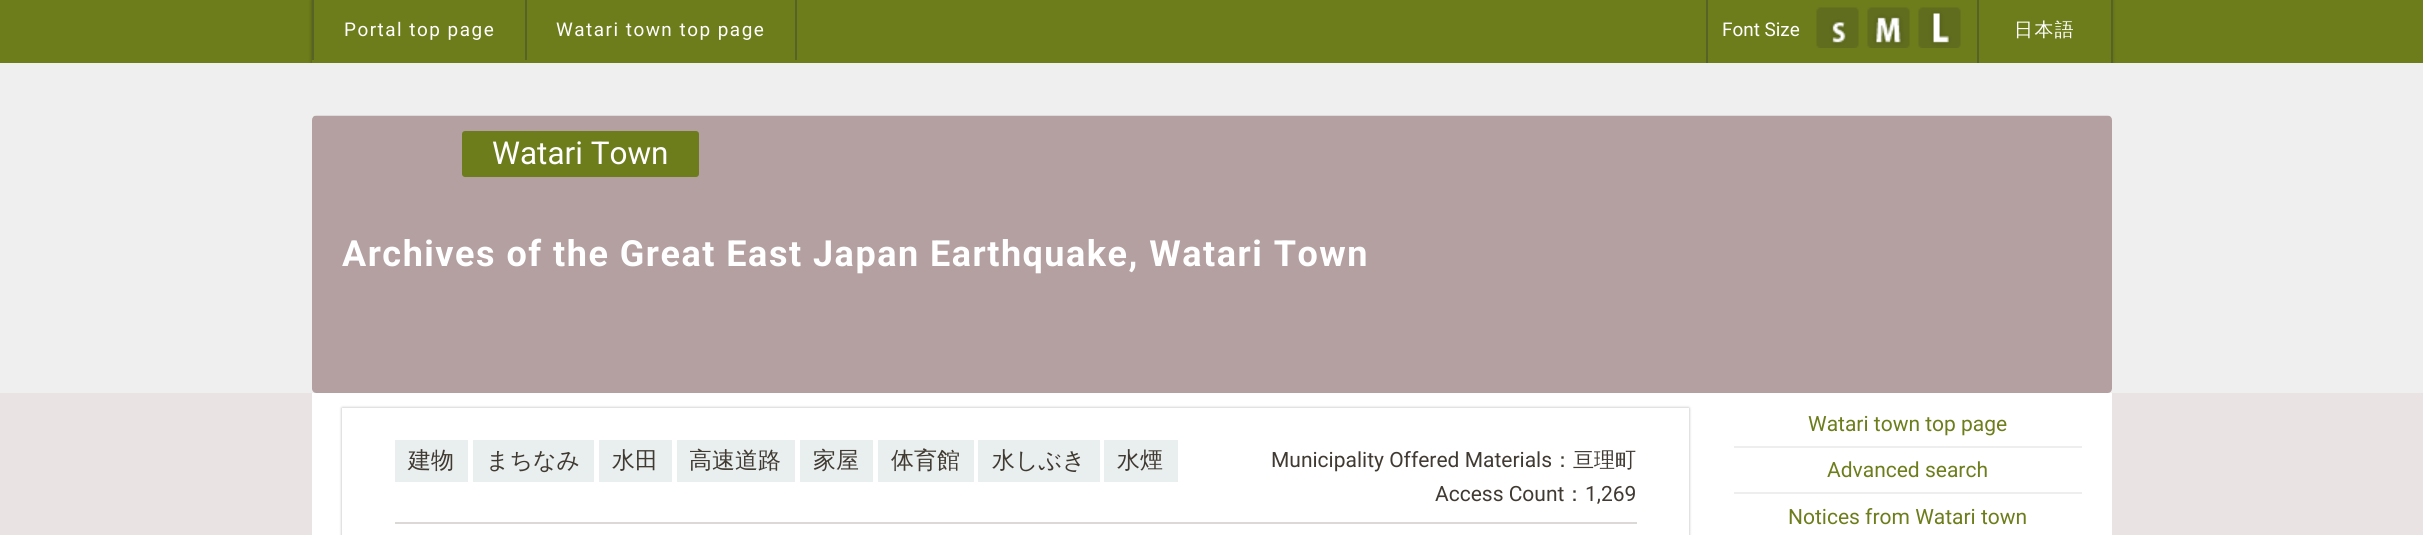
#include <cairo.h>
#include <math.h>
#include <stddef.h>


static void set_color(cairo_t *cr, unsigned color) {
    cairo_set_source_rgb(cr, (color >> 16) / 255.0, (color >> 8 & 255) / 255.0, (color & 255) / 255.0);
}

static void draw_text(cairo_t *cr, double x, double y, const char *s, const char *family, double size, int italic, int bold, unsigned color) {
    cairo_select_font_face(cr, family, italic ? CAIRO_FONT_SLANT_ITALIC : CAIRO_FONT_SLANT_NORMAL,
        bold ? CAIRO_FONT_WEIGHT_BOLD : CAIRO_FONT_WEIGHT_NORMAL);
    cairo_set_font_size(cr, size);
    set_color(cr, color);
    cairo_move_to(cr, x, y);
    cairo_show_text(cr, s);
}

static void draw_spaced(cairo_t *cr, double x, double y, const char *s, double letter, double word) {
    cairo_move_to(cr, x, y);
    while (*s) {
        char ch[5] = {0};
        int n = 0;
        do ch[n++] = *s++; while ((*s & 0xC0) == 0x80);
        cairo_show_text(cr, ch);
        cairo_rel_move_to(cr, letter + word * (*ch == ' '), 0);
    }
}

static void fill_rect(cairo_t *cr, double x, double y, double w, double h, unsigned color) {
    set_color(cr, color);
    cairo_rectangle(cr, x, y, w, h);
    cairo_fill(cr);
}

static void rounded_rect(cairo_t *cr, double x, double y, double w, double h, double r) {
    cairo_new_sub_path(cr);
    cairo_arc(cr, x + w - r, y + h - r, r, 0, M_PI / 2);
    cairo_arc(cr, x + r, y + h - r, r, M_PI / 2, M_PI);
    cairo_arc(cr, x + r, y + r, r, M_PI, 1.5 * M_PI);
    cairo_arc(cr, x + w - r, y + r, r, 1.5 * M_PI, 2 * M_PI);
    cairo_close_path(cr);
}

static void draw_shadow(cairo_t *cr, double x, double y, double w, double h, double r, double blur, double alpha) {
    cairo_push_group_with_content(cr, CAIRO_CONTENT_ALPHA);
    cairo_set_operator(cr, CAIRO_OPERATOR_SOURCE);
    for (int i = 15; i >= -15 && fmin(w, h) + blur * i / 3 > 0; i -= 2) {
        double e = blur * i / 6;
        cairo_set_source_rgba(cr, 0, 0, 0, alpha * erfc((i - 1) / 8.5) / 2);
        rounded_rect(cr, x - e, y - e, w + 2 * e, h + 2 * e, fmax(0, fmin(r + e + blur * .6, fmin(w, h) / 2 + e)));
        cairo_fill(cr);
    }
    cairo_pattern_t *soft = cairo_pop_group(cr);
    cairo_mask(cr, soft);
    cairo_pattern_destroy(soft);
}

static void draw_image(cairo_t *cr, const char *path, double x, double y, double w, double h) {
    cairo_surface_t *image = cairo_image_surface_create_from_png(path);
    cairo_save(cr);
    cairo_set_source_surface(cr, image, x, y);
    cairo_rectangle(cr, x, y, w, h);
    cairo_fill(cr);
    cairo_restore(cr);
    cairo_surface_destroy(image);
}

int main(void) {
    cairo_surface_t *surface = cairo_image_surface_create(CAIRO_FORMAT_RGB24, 2423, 535);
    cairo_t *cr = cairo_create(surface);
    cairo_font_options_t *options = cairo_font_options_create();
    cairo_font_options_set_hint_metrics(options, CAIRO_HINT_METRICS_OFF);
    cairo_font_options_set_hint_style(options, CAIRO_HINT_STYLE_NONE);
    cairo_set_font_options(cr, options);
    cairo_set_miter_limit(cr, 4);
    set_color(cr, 0xE9E3E3);
    cairo_paint(cr);
    fill_rect(cr, 0, 0, 2423, 63, 0x6D7D1B);
    cairo_save(cr);
    cairo_set_fill_rule(cr, CAIRO_FILL_RULE_EVEN_ODD);
    cairo_new_path(cr);
    cairo_move_to(cr, 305, 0);
    cairo_line_to(cr, 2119, 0);
    cairo_line_to(cr, 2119, 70);
    cairo_line_to(cr, 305, 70);
    cairo_close_path(cr);
    cairo_move_to(cr, 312, 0);
    cairo_line_to(cr, 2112, 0);
    cairo_line_to(cr, 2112, 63);
    cairo_line_to(cr, 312, 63);
    cairo_close_path(cr);
    cairo_clip(cr);
    set_color(cr, 0x000000);
    draw_shadow(cr, 312, 0, 1800, 63, 0, 2, 0.3);
    cairo_restore(cr);
    fill_rect(cr, 525, 0, 2, 60, 0x556426);
    fill_rect(cr, 312, 0, 2, 60, 0x556426);
    cairo_select_font_face(cr, "Roboto", CAIRO_FONT_SLANT_NORMAL, CAIRO_FONT_WEIGHT_NORMAL);
    cairo_set_font_size(cr, 18.9);
    set_color(cr, 0xFFFFFF);
    draw_spaced(cr, 344, 36, "Portal top page", 1.5, 0);
    fill_rect(cr, 795, 0, 2, 60, 0x556426);
    set_color(cr, 0xFFFFFF);
    draw_spaced(cr, 556, 36, "Watari town top page", 1.5, 0);
    fill_rect(cr, 1977, 0, 2, 63, 0x556426);
    fill_rect(cr, 1706, 0, 2, 63, 0x556426);
    draw_text(cr, 1722, 36, "Font Size", "Roboto", 18.9, 0, 0, 0xFFFFFF);
    draw_image(cr, "assets/img1.png", 1816, 7, 43, 41);
    draw_image(cr, "assets/img2.png", 1867, 7, 43, 41);
    draw_image(cr, "assets/img3.png", 1918, 7, 43, 41);
    fill_rect(cr, 2111, 0, 2, 63, 0x556426);
    cairo_select_font_face(cr, "WenQuanYi Zen Hei Medium", CAIRO_FONT_SLANT_NORMAL, CAIRO_FONT_WEIGHT_NORMAL);
    set_color(cr, 0xFFFFFF);
    draw_spaced(cr, 2014, 36, "日本語", 1.5, 0);
    fill_rect(cr, 0, 63, 2423, 330, 0xEFEFEF);
    draw_image(cr, "assets/img4.png", 312, 115, 1800, 278);
    set_color(cr, 0x6D7D1B);
    rounded_rect(cr, 462, 131, 237, 46, 3);
    cairo_fill(cr);
    draw_text(cr, 492, 164, "Watari Town", "Roboto", 31.5, 0, 0, 0xFFFFFF);
    cairo_select_font_face(cr, "Roboto", CAIRO_FONT_SLANT_NORMAL, CAIRO_FONT_WEIGHT_BOLD);
    cairo_set_font_size(cr, 36);
    draw_spaced(cr, 342, 266, "Archives of the Great East Japan Earthquake, Watari Town", 1.5, 0);
    fill_rect(cr, 312, 393, 1800, 142, 0xFFFFFF);
    cairo_save(cr);
    cairo_set_fill_rule(cr, CAIRO_FILL_RULE_EVEN_ODD);
    cairo_new_path(cr);
    cairo_move_to(cr, 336, 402);
    cairo_line_to(cr, 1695, 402);
    cairo_line_to(cr, 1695, 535);
    cairo_line_to(cr, 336, 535);
    cairo_close_path(cr);
    cairo_move_to(cr, 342, 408);
    cairo_line_to(cr, 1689, 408);
    cairo_line_to(cr, 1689, 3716);
    cairo_line_to(cr, 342, 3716);
    cairo_close_path(cr);
    cairo_clip(cr);
    set_color(cr, 0x000000);
    draw_shadow(cr, 342, 408, 1347, 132, 0, 1.5, 0.3);
    cairo_restore(cr);
    fill_rect(cr, 395, 522, 1242, 2, 0xDBD8D6);
    fill_rect(cr, 395, 440, 73, 42, 0xE9EEEE);
    draw_text(cr, 408, 468, "建物", "WenQuanYi Zen Hei Medium", 23, 0, 0, 0x403A32);
    fill_rect(cr, 473, 440, 121, 42, 0xE9EEEE);
    draw_text(cr, 486, 468, "まちなみ", "WenQuanYi Zen Hei Medium", 23, 0, 0, 0x403A32);
    fill_rect(cr, 599, 440, 73, 42, 0xE9EEEE);
    draw_text(cr, 612, 468, "水田", "WenQuanYi Zen Hei Medium", 23, 0, 0, 0x403A32);
    fill_rect(cr, 677, 440, 118, 42, 0xE9EEEE);
    draw_text(cr, 689, 468, "高速道路", "WenQuanYi Zen Hei Medium", 23, 0, 0, 0x403A32);
    fill_rect(cr, 800, 440, 73, 42, 0xE9EEEE);
    draw_text(cr, 813, 468, "家屋", "WenQuanYi Zen Hei Medium", 23, 0, 0, 0x403A32);
    fill_rect(cr, 878, 440, 96, 42, 0xE9EEEE);
    draw_text(cr, 891, 468, "体育館", "WenQuanYi Zen Hei Medium", 23, 0, 0, 0x403A32);
    fill_rect(cr, 978, 440, 122, 42, 0xE9EEEE);
    draw_text(cr, 992, 468, "水しぶき", "WenQuanYi Zen Hei Medium", 23, 0, 0, 0x403A32);
    fill_rect(cr, 1104, 440, 74, 42, 0xE9EEEE);
    draw_text(cr, 1117, 468, "水煙", "WenQuanYi Zen Hei Medium", 23, 0, 0, 0x403A32);
    draw_text(cr, 1271, 467, "Municipality Offered Materials", "Roboto", 21, 0, 0, 0x403A32);
    draw_text(cr, 1552, 467, "：亘理町", "WenQuanYi Zen Hei Medium", 21, 0, 0, 0x403A32);
    draw_text(cr, 1435, 501, "Access Count", "Roboto", 21, 0, 0, 0x403A32);
    draw_text(cr, 1564, 501, "：", "WenQuanYi Zen Hei Medium", 21, 0, 0, 0x403A32);
    draw_text(cr, 1585, 501, "1,269", "Roboto", 21, 0, 0, 0x403A32);
    draw_text(cr, 1808, 431, "Watari town top page", "Roboto", 21, 0, 0, 0x6D7D1B);
    fill_rect(cr, 1734, 446, 348, 2, 0xEEEEEE);
    draw_text(cr, 1827, 477, "Advanced search", "Roboto", 21, 0, 0, 0x6D7D1B);
    fill_rect(cr, 1734, 492, 348, 2, 0xEEEEEE);
    draw_text(cr, 1788, 524, "Notices from Watari town", "Roboto", 21, 0, 0, 0x6D7D1B);
    cairo_surface_write_to_png(surface, "output.png");
    cairo_font_options_destroy(options);
    cairo_destroy(cr);
    cairo_surface_destroy(surface);
    return 0;
}
